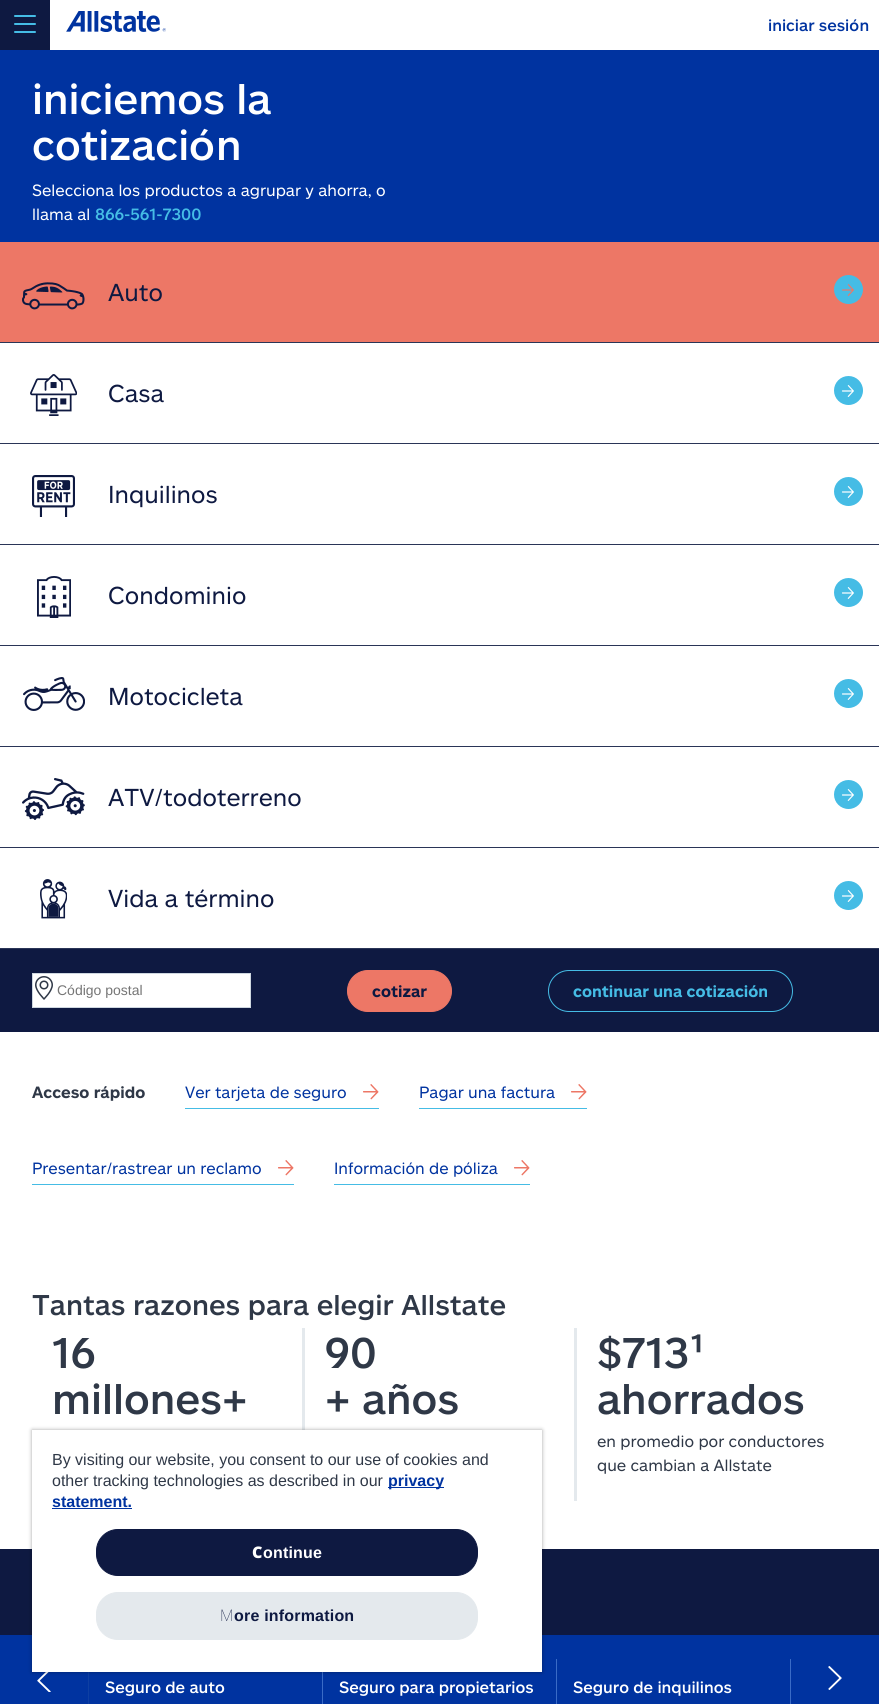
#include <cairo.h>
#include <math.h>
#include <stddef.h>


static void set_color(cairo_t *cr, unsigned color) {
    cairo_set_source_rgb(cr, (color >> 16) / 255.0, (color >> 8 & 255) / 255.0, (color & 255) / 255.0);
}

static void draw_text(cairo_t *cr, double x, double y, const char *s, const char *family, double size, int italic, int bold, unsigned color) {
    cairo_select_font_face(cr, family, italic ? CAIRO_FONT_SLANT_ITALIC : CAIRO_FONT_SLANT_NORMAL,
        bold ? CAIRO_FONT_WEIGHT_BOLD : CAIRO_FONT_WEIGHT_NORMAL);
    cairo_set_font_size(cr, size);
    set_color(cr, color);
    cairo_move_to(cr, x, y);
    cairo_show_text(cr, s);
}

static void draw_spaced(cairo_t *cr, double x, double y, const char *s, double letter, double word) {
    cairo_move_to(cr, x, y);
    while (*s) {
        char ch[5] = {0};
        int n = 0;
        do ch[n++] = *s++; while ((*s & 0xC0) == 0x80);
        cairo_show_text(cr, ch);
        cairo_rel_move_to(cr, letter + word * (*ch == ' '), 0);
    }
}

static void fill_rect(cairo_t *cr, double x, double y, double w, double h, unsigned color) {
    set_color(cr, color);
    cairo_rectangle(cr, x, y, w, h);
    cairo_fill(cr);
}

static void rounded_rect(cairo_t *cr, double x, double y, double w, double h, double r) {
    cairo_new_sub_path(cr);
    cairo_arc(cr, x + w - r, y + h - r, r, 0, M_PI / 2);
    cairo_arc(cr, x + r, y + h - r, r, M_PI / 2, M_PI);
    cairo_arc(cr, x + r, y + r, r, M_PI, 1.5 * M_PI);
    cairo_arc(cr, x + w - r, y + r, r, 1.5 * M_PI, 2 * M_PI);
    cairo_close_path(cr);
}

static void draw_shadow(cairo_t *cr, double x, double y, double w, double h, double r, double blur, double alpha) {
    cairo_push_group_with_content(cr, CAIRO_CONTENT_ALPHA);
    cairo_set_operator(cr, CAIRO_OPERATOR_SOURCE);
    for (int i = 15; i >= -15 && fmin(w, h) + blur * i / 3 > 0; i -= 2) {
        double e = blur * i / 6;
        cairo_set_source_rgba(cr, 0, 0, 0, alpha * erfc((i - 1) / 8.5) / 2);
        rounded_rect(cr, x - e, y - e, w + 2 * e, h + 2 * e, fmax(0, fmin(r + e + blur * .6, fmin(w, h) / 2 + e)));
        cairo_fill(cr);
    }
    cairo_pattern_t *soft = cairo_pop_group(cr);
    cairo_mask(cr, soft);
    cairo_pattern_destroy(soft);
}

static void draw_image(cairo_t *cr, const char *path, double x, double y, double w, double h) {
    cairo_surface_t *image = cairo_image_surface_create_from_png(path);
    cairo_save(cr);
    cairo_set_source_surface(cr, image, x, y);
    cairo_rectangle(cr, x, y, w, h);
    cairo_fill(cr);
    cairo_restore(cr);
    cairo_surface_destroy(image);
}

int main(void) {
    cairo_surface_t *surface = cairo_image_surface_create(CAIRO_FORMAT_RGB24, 879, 1704);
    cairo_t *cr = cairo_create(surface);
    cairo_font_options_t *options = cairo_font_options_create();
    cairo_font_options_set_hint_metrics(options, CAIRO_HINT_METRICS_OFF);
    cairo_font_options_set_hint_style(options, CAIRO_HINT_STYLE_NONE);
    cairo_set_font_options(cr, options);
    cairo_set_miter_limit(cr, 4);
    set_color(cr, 0xFFFFFF);
    cairo_paint(cr);
    fill_rect(cr, 0, 0, 50, 50, 0x0E1941);
    draw_image(cr, "assets/img1.png", 14, 15, 22, 18);
    draw_image(cr, "assets/img2.png", 66, 11, 100, 21);
    draw_text(cr, 768, 31, "iniciar sesión", "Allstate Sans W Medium", 16, 0, 0, 0x0033A0);
    fill_rect(cr, 0, 50, 879, 192, 0x0033A0);
    draw_text(cr, 32, 114, "iniciemos la", "Allstate Sans W Medium", 42, 0, 0, 0xFFFFFF);
    draw_text(cr, 32, 160, "cotización", "Allstate Sans W Medium", 42, 0, 0, 0xFFFFFF);
    draw_text(cr, 32, 196, "Selecciona los productos a agrupar y ahorra, o", "Allstate Sans W", 16, 0, 0, 0xFFFFFF);
    draw_text(cr, 32, 220, "llama al", "Allstate Sans W", 16, 0, 0, 0xFFFFFF);
    draw_text(cr, 95, 220, "866-561-7300", "Allstate Sans W Medium", 16, 0, 0, 0x45BCE5);
    fill_rect(cr, 0, 342, 879, 1, 0x2A3557);
    fill_rect(cr, 0, 242, 879, 100, 0xED7766);
    draw_image(cr, "assets/img3.png", 22, 282, 63, 28);
    draw_text(cr, 108, 301, "Auto", "Allstate Sans W", 24, 0, 0, 0x0E1941);
    draw_image(cr, "assets/img4.png", 834, 275, 29, 29);
    fill_rect(cr, 0, 443, 879, 1, 0x2A3557);
    draw_image(cr, "assets/img5.png", 30, 374, 47, 42);
    draw_text(cr, 108, 402, "Casa", "Allstate Sans W", 24, 0, 0, 0x0E1941);
    draw_image(cr, "assets/img6.png", 834, 376, 29, 29);
    fill_rect(cr, 0, 544, 879, 1, 0x2A3557);
    draw_image(cr, "assets/img7.png", 32, 475, 43, 42);
    draw_text(cr, 108, 503, "Inquilinos", "Allstate Sans W", 24, 0, 0, 0x0E1941);
    draw_image(cr, "assets/img6.png", 834, 477, 29, 29);
    fill_rect(cr, 0, 645, 879, 1, 0x2A3557);
    draw_image(cr, "assets/img8.png", 37, 576, 34, 42);
    draw_text(cr, 108, 604, "Condominio", "Allstate Sans W", 24, 0, 0, 0x0E1941);
    draw_image(cr, "assets/img6.png", 834, 578, 29, 29);
    fill_rect(cr, 0, 746, 879, 1, 0x2A3557);
    draw_image(cr, "assets/img9.png", 23, 677, 62, 34);
    draw_text(cr, 108, 705, "Motocicleta", "Allstate Sans W", 24, 0, 0, 0x0E1941);
    draw_image(cr, "assets/img6.png", 834, 679, 29, 29);
    fill_rect(cr, 0, 847, 879, 1, 0x2A3557);
    draw_image(cr, "assets/img10.png", 22, 778, 63, 42);
    draw_text(cr, 108, 806, "ATV/todoterreno", "Allstate Sans W", 24, 0, 0, 0x0E1941);
    draw_image(cr, "assets/img6.png", 834, 780, 29, 29);
    fill_rect(cr, 0, 948, 879, 1, 0x2A3557);
    draw_image(cr, "assets/img11.png", 40, 879, 27, 40);
    draw_text(cr, 108, 907, "Vida a término", "Allstate Sans W", 24, 0, 0, 0x0E1941);
    draw_image(cr, "assets/img6.png", 834, 881, 29, 29);
    fill_rect(cr, 0, 949, 879, 83, 0x0E1941);
    set_color(cr, 0xFFFFFF);
    cairo_rectangle(cr, 32.5, 973.5, 218, 34);
    cairo_fill_preserve(cr);
    set_color(cr, 0xCED7E0);
    cairo_set_line_width(cr, 1);
    cairo_stroke(cr);
    draw_image(cr, "assets/img12.png", 35, 976, 18, 24);
    draw_text(cr, 57, 995, "Código postal", "Liberation Sans", 14, 0, 0, 0x757575);
    set_color(cr, 0xED7766);
    rounded_rect(cr, 347.5, 970.5, 104, 41, 20.5);
    cairo_fill_preserve(cr);
    cairo_stroke(cr);
    draw_text(cr, 372, 997, "cotizar", "Allstate Sans W", 16, 0, 1, 0x0E1941);
    rounded_rect(cr, 548.5, 970.5, 244, 41, 20.5);
    set_color(cr, 0x45BCE5);
    cairo_stroke(cr);
    draw_text(cr, 573, 997, "continuar una cotización", "Allstate Sans W", 16, 0, 1, 0x45BCE5);
    draw_text(cr, 32, 1098, "Acceso rápido", "Allstate Sans W", 16, 0, 1, 0x2F3847);
    fill_rect(cr, 185, 1108, 194, 1, 0x45BCE5);
    draw_text(cr, 185, 1098, "Ver tarjeta de seguro", "Allstate Sans W", 16, 0, 0, 0x0033A0);
    draw_image(cr, "assets/img13.png", 363, 1084, 16, 16);
    fill_rect(cr, 419, 1108, 168, 1, 0x45BCE5);
    draw_text(cr, 419, 1098, "Pagar una factura", "Allstate Sans W", 16, 0, 0, 0x0033A0);
    draw_image(cr, "assets/img13.png", 571, 1084, 16, 16);
    fill_rect(cr, 32, 1184, 262, 1, 0x45BCE5);
    draw_text(cr, 32, 1174, "Presentar/rastrear un reclamo", "Allstate Sans W", 16, 0, 0, 0x0033A0);
    draw_image(cr, "assets/img13.png", 278, 1160, 16, 16);
    fill_rect(cr, 334, 1184, 196, 1, 0x45BCE5);
    draw_text(cr, 334, 1174, "Información de póliza", "Allstate Sans W", 16, 0, 0, 0x0033A0);
    draw_image(cr, "assets/img13.png", 514, 1160, 16, 16);
    draw_text(cr, 32, 1315, "Tantas razones para elegir Allstate", "Allstate Sans W Medium", 28, 0, 0, 0x2F3847);
    fill_rect(cr, 302, 1328, 3, 102, 0xE4E9ED);
    draw_text(cr, 52, 1368, "16", "Allstate Sans W Medium", 42, 0, 0, 0x2F3847);
    draw_text(cr, 52, 1414, "millones+", "Allstate Sans W Medium", 42, 0, 0, 0x2F3847);
    fill_rect(cr, 574, 1328, 3, 173, 0xE4E9ED);
    draw_text(cr, 325, 1368, "90", "Allstate Sans W Medium", 42, 0, 0, 0x2F3847);
    draw_text(cr, 325, 1414, "+ años", "Allstate Sans W Medium", 42, 0, 0, 0x2F3847);
    draw_text(cr, 597, 1368, "$713¹", "Allstate Sans W Medium", 42, 0, 0, 0x2F3847);
    draw_text(cr, 597, 1414, "ahorrados", "Allstate Sans W Medium", 42, 0, 0, 0x2F3847);
    draw_text(cr, 597, 1447, "en promedio por conductores", "Allstate Sans W", 16, 0, 0, 0x2F3847);
    draw_text(cr, 597, 1471, "que cambian a Allstate", "Allstate Sans W", 16, 0, 0, 0x2F3847);
    fill_rect(cr, 0, 1549, 879, 86, 0x0E1941);
    fill_rect(cr, 0, 1635, 88, 69, 0x0033A0);
    fill_rect(cr, 88, 1672, 1, 32, 0x0E3FA2);
    draw_image(cr, "assets/img14.png", 37, 1672, 14, 20);
    fill_rect(cr, 89, 1672, 233, 32, 0x0033A0);
    fill_rect(cr, 322, 1672, 1, 32, 0x3A6BC6);
    draw_text(cr, 105, 1693, "Seguro de auto", "Allstate Sans W Medium", 16, 0, 0, 0xFFFFFF);
    fill_rect(cr, 323, 1635, 556, 69, 0x0033A0);
    fill_rect(cr, 556, 1659, 1, 45, 0x3A6BC6);
    draw_text(cr, 339, 1693, "Seguro para propietarios", "Allstate Sans W Medium", 16, 0, 0, 0xFFFFFF);
    fill_rect(cr, 790, 1659, 1, 45, 0x3A6BC6);
    draw_text(cr, 573, 1693, "Seguro de inquilinos", "Allstate Sans W Medium", 16, 0, 0, 0xFFFFFF);
    draw_image(cr, "assets/img15.png", 828, 1666, 14, 24);
    set_color(cr, 0x000000);
    draw_shadow(cr, 32, 1430, 510, 242, 0, 2, 0.35);
    fill_rect(cr, 32, 1430, 510, 242, 0xFFFFFF);
    draw_text(cr, 52, 1465, "By visiting our website, you consent to our use of cookies and", "Liberation Sans", 16, 0, 0, 0x2F3847);
    draw_text(cr, 52, 1486, "other tracking technologies as described in our", "Liberation Sans", 16, 0, 0, 0x2F3847);
    fill_rect(cr, 388, 1487, 56, 1, 0x0033A0);
    draw_text(cr, 388, 1486, "privacy", "Liberation Sans", 16, 0, 1, 0x0033A0);
    draw_text(cr, 52, 1507, "statement.", "Liberation Sans", 16, 0, 1, 0x0033A0);
    fill_rect(cr, 52, 1508, 80, 1, 0x0033A0);
    set_color(cr, 0x0E1941);
    rounded_rect(cr, 96.5, 1529.5, 381, 46, 21.5);
    cairo_fill_preserve(cr);
    cairo_stroke(cr);
    cairo_select_font_face(cr, "Noto Sans Black", CAIRO_FONT_SLANT_NORMAL, CAIRO_FONT_WEIGHT_NORMAL);
    set_color(cr, 0xFFFFFF);
    draw_spaced(cr, 252, 1558, "C", 0.2, 0);
    cairo_select_font_face(cr, "Liberation Sans", CAIRO_FONT_SLANT_NORMAL, CAIRO_FONT_WEIGHT_BOLD);
    draw_spaced(cr, 263, 1558, "ontinue", 0.2, 0);
    set_color(cr, 0xE4E9ED);
    rounded_rect(cr, 96.5, 1592.5, 381, 47, 21.5);
    cairo_fill_preserve(cr);
    cairo_stroke(cr);
    cairo_select_font_face(cr, "Noto Sans Thin", CAIRO_FONT_SLANT_NORMAL, CAIRO_FONT_WEIGHT_NORMAL);
    set_color(cr, 0x0E1941);
    draw_spaced(cr, 220, 1621, "M", 0.2, 0);
    cairo_select_font_face(cr, "Liberation Sans", CAIRO_FONT_SLANT_NORMAL, CAIRO_FONT_WEIGHT_BOLD);
    draw_spaced(cr, 234, 1621, "ore information", 0.2, 0);
    cairo_surface_write_to_png(surface, "output.png");
    cairo_font_options_destroy(options);
    cairo_destroy(cr);
    cairo_surface_destroy(surface);
    return 0;
}
